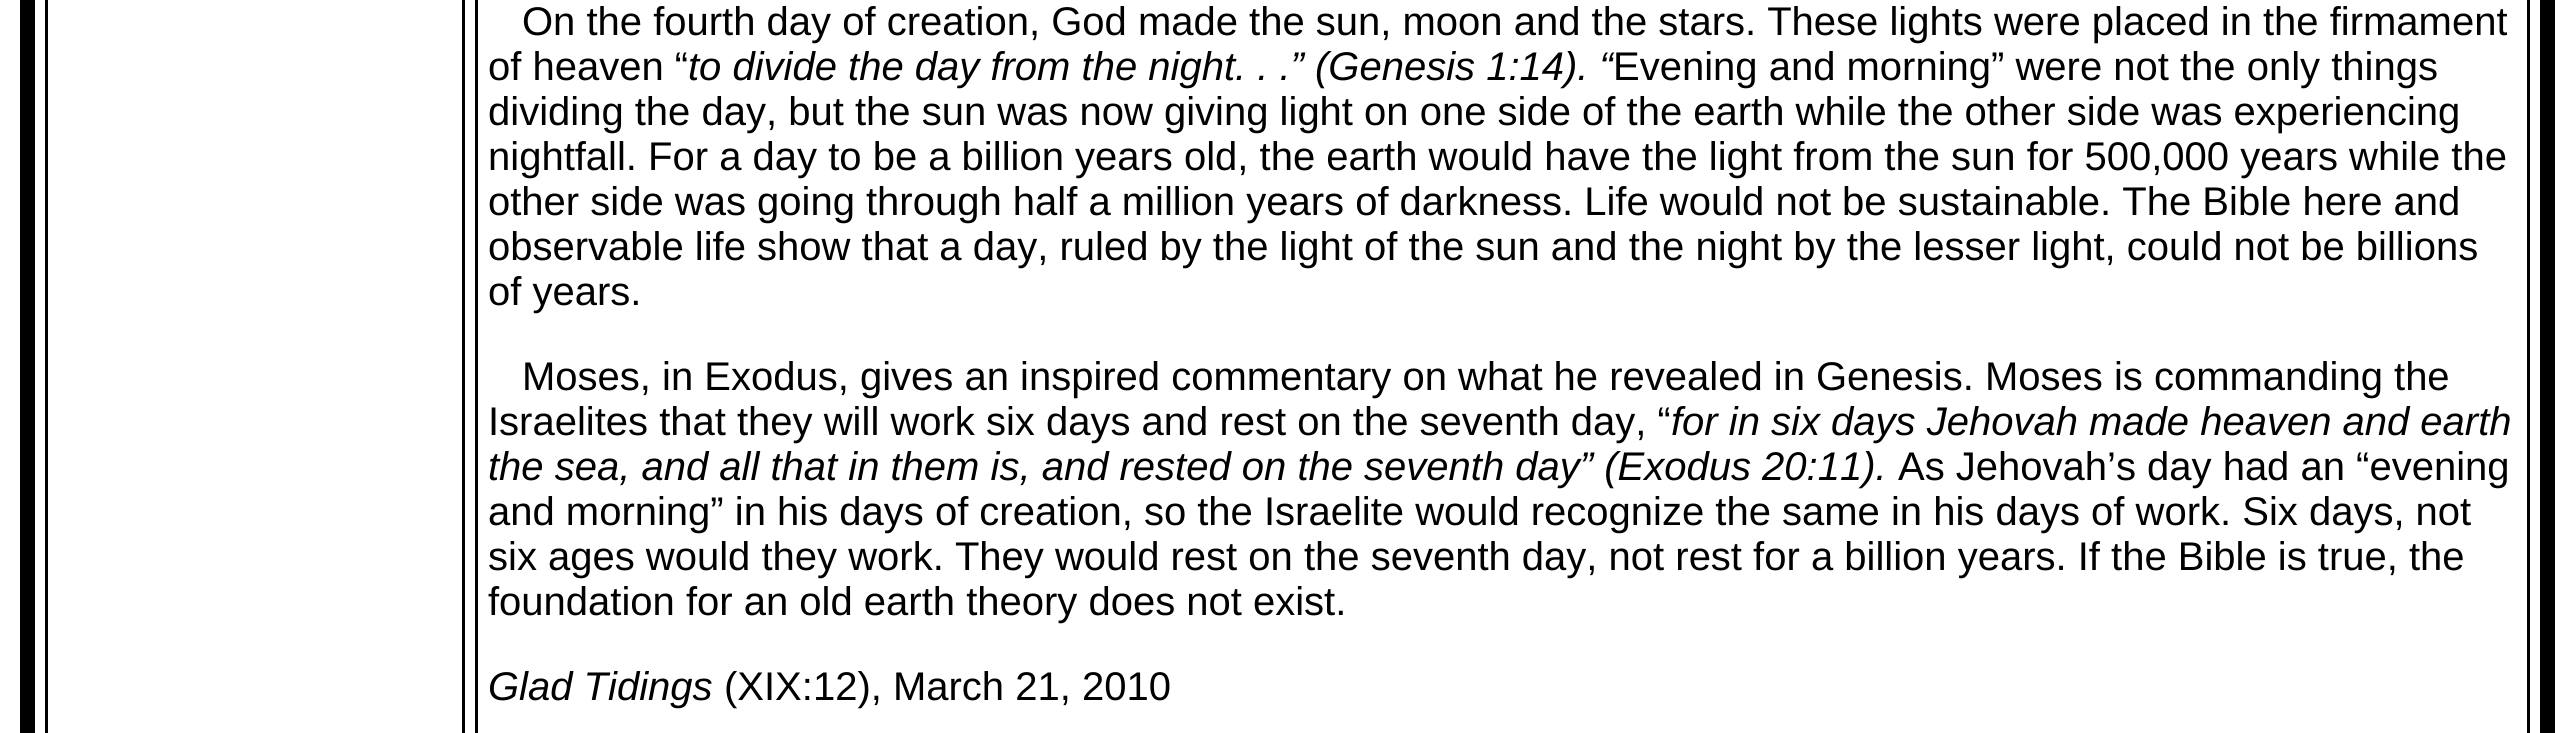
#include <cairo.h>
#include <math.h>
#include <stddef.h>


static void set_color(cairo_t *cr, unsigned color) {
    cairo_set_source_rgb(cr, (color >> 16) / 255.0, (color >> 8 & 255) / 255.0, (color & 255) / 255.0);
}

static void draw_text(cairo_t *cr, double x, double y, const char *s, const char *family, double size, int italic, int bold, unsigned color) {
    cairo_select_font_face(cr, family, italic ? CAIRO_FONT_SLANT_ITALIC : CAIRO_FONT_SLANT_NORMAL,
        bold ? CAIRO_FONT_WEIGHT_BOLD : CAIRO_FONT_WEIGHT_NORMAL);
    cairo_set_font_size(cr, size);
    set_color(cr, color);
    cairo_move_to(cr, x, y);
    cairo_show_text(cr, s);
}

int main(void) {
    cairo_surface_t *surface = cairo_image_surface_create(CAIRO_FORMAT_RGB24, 2573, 733);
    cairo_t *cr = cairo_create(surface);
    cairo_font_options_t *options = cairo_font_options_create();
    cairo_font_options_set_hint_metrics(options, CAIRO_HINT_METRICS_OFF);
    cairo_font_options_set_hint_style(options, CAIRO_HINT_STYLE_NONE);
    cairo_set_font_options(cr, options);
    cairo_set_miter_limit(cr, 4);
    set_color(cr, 0xFFFFFF);
    cairo_paint(cr);
    cairo_rectangle(cr, 27.5, -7.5, 2520, 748);
    set_color(cr, 0x000000);
    cairo_set_line_width(cr, 15);
    cairo_stroke(cr);
    cairo_rectangle(cr, 46.5, -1.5, 417, 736);
    cairo_set_line_width(cr, 3);
    cairo_stroke(cr);
    cairo_rectangle(cr, 476.5, -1.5, 2052, 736);
    cairo_stroke(cr);
    draw_text(cr, 522, 35, "On the fourth day of creation, God made the sun, moon and the stars. These lights were placed in the firmament", "Liberation Sans", 40, 0, 0, 0x000000);
    draw_text(cr, 488, 80, "of heaven “", "Liberation Sans", 40, 0, 0, 0x000000);
    draw_text(cr, 688, 80, "to divide the day from the night. . .” (Genesis 1:14). “", "Liberation Sans", 40, 1, 0, 0x000000);
    draw_text(cr, 1613, 80, "Evening and morning” were not the only things", "Liberation Sans", 40, 0, 0, 0x000000);
    draw_text(cr, 488, 125, "dividing the day, but the sun was now giving light on one side of the earth while the other side was experiencing", "Liberation Sans", 40, 0, 0, 0x000000);
    draw_text(cr, 488, 170, "nightfall. For a day to be a billion years old, the earth would have the light from the sun for 500,000 years while the", "Liberation Sans", 40, 0, 0, 0x000000);
    draw_text(cr, 488, 215, "other side was going through half a million years of darkness. Life would not be sustainable. The Bible here and", "Liberation Sans", 40, 0, 0, 0x000000);
    draw_text(cr, 488, 260, "observable life show that a day, ruled by the light of the sun and the night by the lesser light, could not be billions", "Liberation Sans", 40, 0, 0, 0x000000);
    draw_text(cr, 488, 305, "of years.", "Liberation Sans", 40, 0, 0, 0x000000);
    draw_text(cr, 522, 390, "Moses, in Exodus, gives an inspired commentary on what he revealed in Genesis. Moses is commanding the", "Liberation Sans", 40, 0, 0, 0x000000);
    draw_text(cr, 488, 435, "Israelites that they will work six days and rest on the seventh day, “", "Liberation Sans", 40, 0, 0, 0x000000);
    draw_text(cr, 1671, 435, "for in six days Jehovah made heaven and earth", "Liberation Sans", 40, 1, 0, 0x000000);
    draw_text(cr, 488, 480, "the sea, and all that in them is, and rested on the seventh day” (Exodus 20:11).", "Liberation Sans", 40, 1, 0, 0x000000);
    draw_text(cr, 1898, 480, "As Jehovah’s day had an “evening", "Liberation Sans", 40, 0, 0, 0x000000);
    draw_text(cr, 488, 525, "and morning” in his days of creation, so the Israelite would recognize the same in his days of work. Six days, not", "Liberation Sans", 40, 0, 0, 0x000000);
    draw_text(cr, 488, 570, "six ages would they work. They would rest on the seventh day, not rest for a billion years. If the Bible is true, the", "Liberation Sans", 40, 0, 0, 0x000000);
    draw_text(cr, 488, 615, "foundation for an old earth theory does not exist.", "Liberation Sans", 40, 0, 0, 0x000000);
    draw_text(cr, 488, 700, "Glad Tidings", "Liberation Sans", 40, 1, 0, 0x000000);
    draw_text(cr, 724, 700, "(XIX:12), March 21, 2010", "Liberation Sans", 40, 0, 0, 0x000000);
    cairo_surface_write_to_png(surface, "output.png");
    cairo_font_options_destroy(options);
    cairo_destroy(cr);
    cairo_surface_destroy(surface);
    return 0;
}
